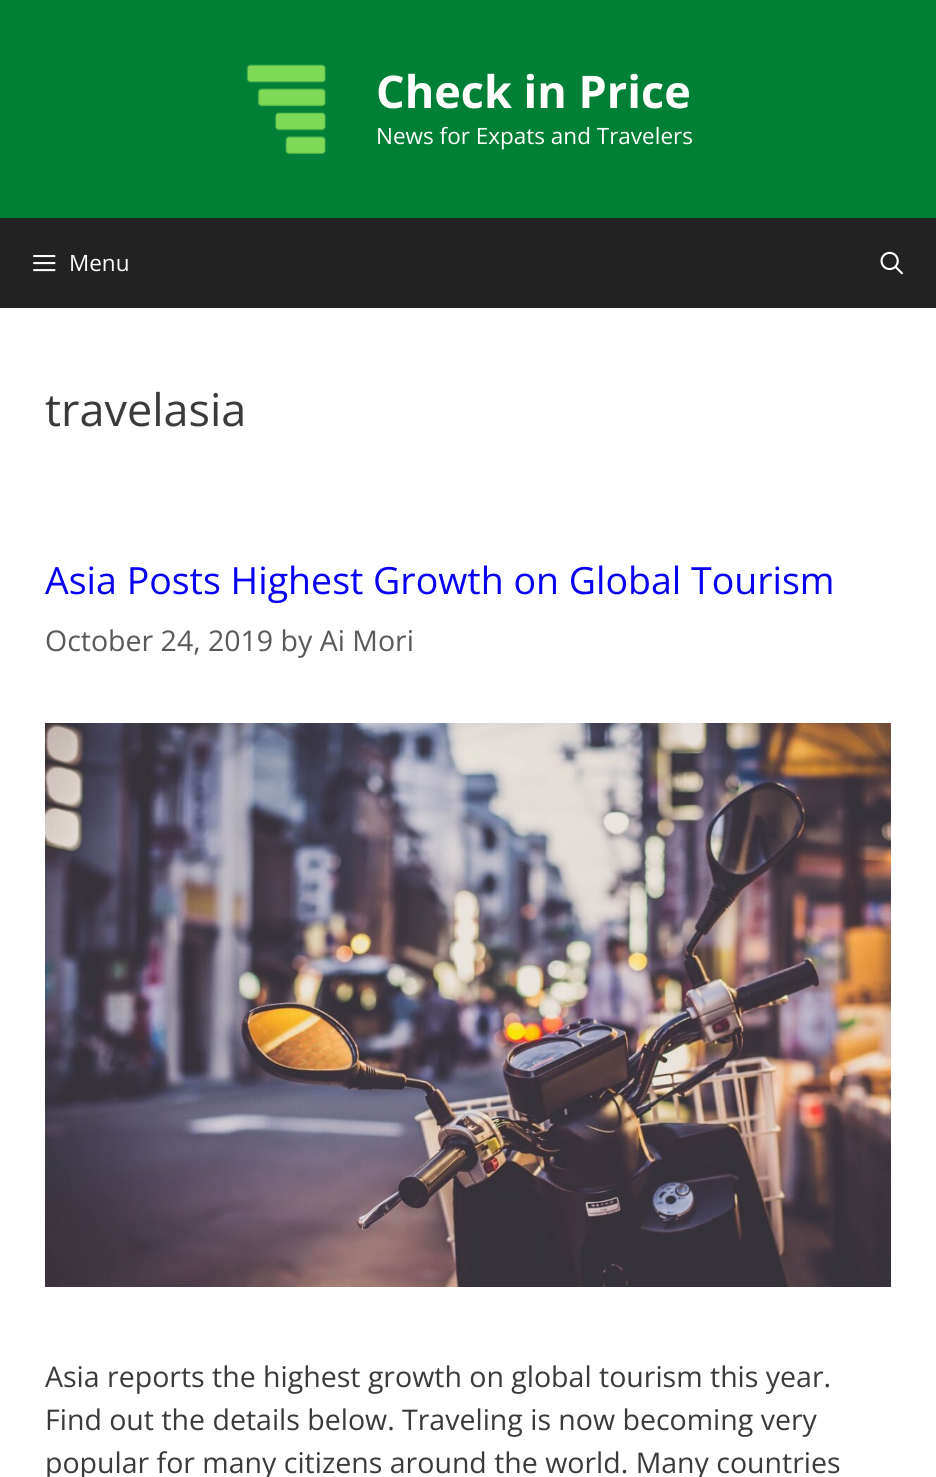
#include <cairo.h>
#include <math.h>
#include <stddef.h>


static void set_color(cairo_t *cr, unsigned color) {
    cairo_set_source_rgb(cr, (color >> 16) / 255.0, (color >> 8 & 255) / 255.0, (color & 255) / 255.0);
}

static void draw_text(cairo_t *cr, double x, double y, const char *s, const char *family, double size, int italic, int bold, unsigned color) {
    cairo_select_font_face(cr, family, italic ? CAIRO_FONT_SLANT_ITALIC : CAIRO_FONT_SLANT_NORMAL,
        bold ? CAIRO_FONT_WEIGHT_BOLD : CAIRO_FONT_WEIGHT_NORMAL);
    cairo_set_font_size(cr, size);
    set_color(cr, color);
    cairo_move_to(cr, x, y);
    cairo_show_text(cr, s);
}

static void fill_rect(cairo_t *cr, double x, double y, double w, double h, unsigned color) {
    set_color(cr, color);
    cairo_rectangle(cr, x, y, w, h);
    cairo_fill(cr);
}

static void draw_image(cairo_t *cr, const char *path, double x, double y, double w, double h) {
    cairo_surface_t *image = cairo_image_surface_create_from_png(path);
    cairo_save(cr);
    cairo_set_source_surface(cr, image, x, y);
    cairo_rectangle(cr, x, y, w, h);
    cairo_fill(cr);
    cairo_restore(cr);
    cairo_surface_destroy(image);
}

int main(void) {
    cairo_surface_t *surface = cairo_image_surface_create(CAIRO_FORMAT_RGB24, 936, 1477);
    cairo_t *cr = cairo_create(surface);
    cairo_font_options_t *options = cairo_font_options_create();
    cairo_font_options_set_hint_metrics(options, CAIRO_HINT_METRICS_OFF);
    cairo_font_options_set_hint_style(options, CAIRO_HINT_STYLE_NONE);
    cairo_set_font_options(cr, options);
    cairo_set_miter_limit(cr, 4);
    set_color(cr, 0xFFFFFF);
    cairo_paint(cr);
    fill_rect(cr, 0, 0, 936, 218, 0x008036);
    draw_image(cr, "assets/img1.png", 246, 64, 80, 90);
    draw_text(cr, 376, 108, "Check in Price", "Open Sans", 45, 0, 1, 0xFFFFFF);
    draw_text(cr, 376, 144, "News for Expats and Travelers", "Open Sans", 22.5, 0, 0, 0xFFFFFF);
    fill_rect(cr, 0, 218, 936, 90, 0x222222);
    draw_image(cr, "assets/img2.png", 33, 255, 23, 17);
    draw_text(cr, 69, 271, "Menu", "Open Sans", 22.5, 0, 0, 0xFFFFFF);
    draw_image(cr, "assets/img3.png", 880, 251, 23, 24);
    draw_text(cr, 45, 426, "travelasia", "Open Sans", 45, 0, 0, 0x3A3A3A);
    draw_text(cr, 45, 594, "Asia Posts Highest Growth on Global Tourism", "Open Sans", 37.5, 0, 0, 0x0800F2);
    draw_text(cr, 45, 651, "October 24, 2019 by Ai Mori", "Open Sans", 28.5, 0, 0, 0x595959);
    draw_image(cr, "assets/img4.png", 45, 723, 846, 564);
    draw_text(cr, 45, 1387, "Asia reports the highest growth on global tourism this year.", "Open Sans", 28.5, 0, 0, 0x3A3A3A);
    draw_text(cr, 45, 1430, "Find out the details below. Traveling is now becoming very", "Open Sans", 28.5, 0, 0, 0x3A3A3A);
    draw_text(cr, 45, 1473, "popular for many citizens around the world. Many countries", "Open Sans", 28.5, 0, 0, 0x3A3A3A);
    cairo_surface_write_to_png(surface, "output.png");
    cairo_font_options_destroy(options);
    cairo_destroy(cr);
    cairo_surface_destroy(surface);
    return 0;
}
